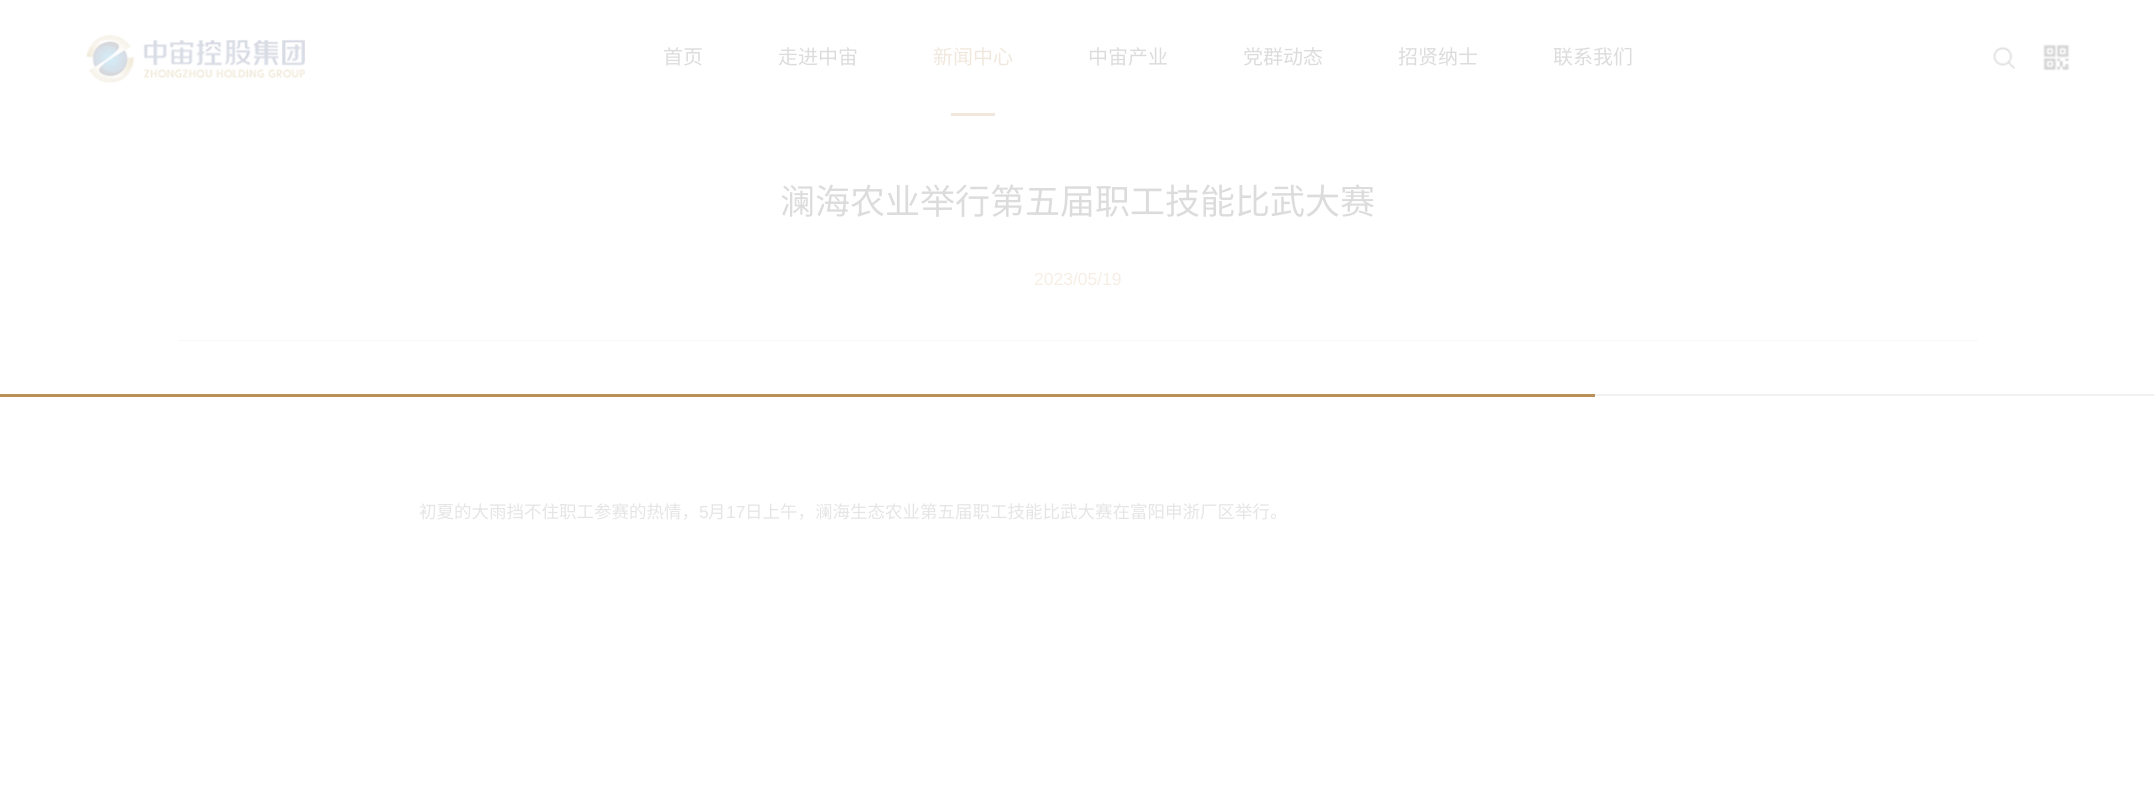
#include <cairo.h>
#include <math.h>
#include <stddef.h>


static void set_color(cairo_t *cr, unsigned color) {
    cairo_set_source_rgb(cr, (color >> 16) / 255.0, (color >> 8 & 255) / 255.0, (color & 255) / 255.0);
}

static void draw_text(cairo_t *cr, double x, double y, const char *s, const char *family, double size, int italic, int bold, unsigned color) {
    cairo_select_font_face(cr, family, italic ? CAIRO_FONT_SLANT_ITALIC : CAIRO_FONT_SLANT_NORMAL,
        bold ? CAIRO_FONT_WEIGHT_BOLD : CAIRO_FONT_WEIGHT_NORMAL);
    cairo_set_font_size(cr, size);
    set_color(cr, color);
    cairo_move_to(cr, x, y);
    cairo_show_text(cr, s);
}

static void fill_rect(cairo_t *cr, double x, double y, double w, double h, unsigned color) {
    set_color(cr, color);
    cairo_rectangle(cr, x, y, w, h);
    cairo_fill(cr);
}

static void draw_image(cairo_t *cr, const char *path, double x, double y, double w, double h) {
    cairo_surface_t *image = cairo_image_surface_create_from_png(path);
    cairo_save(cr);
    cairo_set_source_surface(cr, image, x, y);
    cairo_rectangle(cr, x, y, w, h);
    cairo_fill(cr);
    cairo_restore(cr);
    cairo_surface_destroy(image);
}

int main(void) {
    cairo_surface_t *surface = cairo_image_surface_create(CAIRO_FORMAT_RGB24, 2154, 788);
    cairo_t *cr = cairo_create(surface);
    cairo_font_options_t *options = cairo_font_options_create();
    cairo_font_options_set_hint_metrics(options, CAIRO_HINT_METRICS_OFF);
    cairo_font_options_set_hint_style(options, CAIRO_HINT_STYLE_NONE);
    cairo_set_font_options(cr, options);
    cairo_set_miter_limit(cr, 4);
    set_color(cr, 0xFFFFFF);
    cairo_paint(cr);
    draw_image(cr, "assets/img1.png", 86, 34, 219, 49);
    draw_text(cr, 663, 64, "首页", "Noto Sans CJK SC", 20, 0, 0, 0xDCDCDC);
    draw_text(cr, 778, 64, "走进中宙", "Noto Sans CJK SC", 20, 0, 0, 0xDCDCDC);
    draw_text(cr, 933, 64, "新闻中心", "Noto Sans CJK SC", 20, 0, 0, 0xF1E8DD);
    fill_rect(cr, 951, 113, 44, 3, 0xF1E8DD);
    draw_text(cr, 1088, 64, "中宙产业", "Noto Sans CJK SC", 20, 0, 0, 0xDCDCDC);
    draw_text(cr, 1243, 64, "党群动态", "Noto Sans CJK SC", 20, 0, 0, 0xDCDCDC);
    draw_text(cr, 1398, 64, "招贤纳士", "Noto Sans CJK SC", 20, 0, 0, 0xDCDCDC);
    draw_text(cr, 1553, 64, "联系我们", "Noto Sans CJK SC", 20, 0, 0, 0xDCDCDC);
    draw_image(cr, "assets/img2.png", 1993, 46, 22, 23);
    draw_image(cr, "assets/img3.png", 2043, 44, 27, 27);
    fill_rect(cr, 178, 340, 1800, 1, 0xF7F8F9);
    draw_text(cr, 780, 214, "澜海农业举行第五届职工技能比武大赛", "Noto Sans CJK SC", 35, 0, 0, 0xDCDCDC);
    draw_text(cr, 1034, 285, "2023/05/19", "Liberation Sans", 17.5, 0, 0, 0xF6EEE4);
    draw_text(cr, 419, 518, "初夏的大雨挡不住职工参赛的热情，", "Noto Sans CJK SC", 17.5, 0, 0, 0xE5E5E5);
    draw_text(cr, 699, 518, "5", "Liberation Sans", 17.5, 0, 0, 0xE5E5E5);
    draw_text(cr, 708, 518, "月", "Noto Sans CJK SC", 17.5, 0, 0, 0xE5E5E5);
    draw_text(cr, 726, 518, "17", "Liberation Sans", 17.5, 0, 0, 0xE5E5E5);
    draw_text(cr, 745, 518, "日上午，澜海生态农业第五届职工技能比武大赛在富阳申浙厂区举行。", "Noto Sans CJK SC", 17.5, 0, 0, 0xE5E5E5);
    fill_rect(cr, 0, 394, 1595, 3, 0xBA9059);
    fill_rect(cr, 1595, 394, 559, 2, 0xF1F1F1);
    cairo_surface_write_to_png(surface, "output.png");
    cairo_font_options_destroy(options);
    cairo_destroy(cr);
    cairo_surface_destroy(surface);
    return 0;
}
